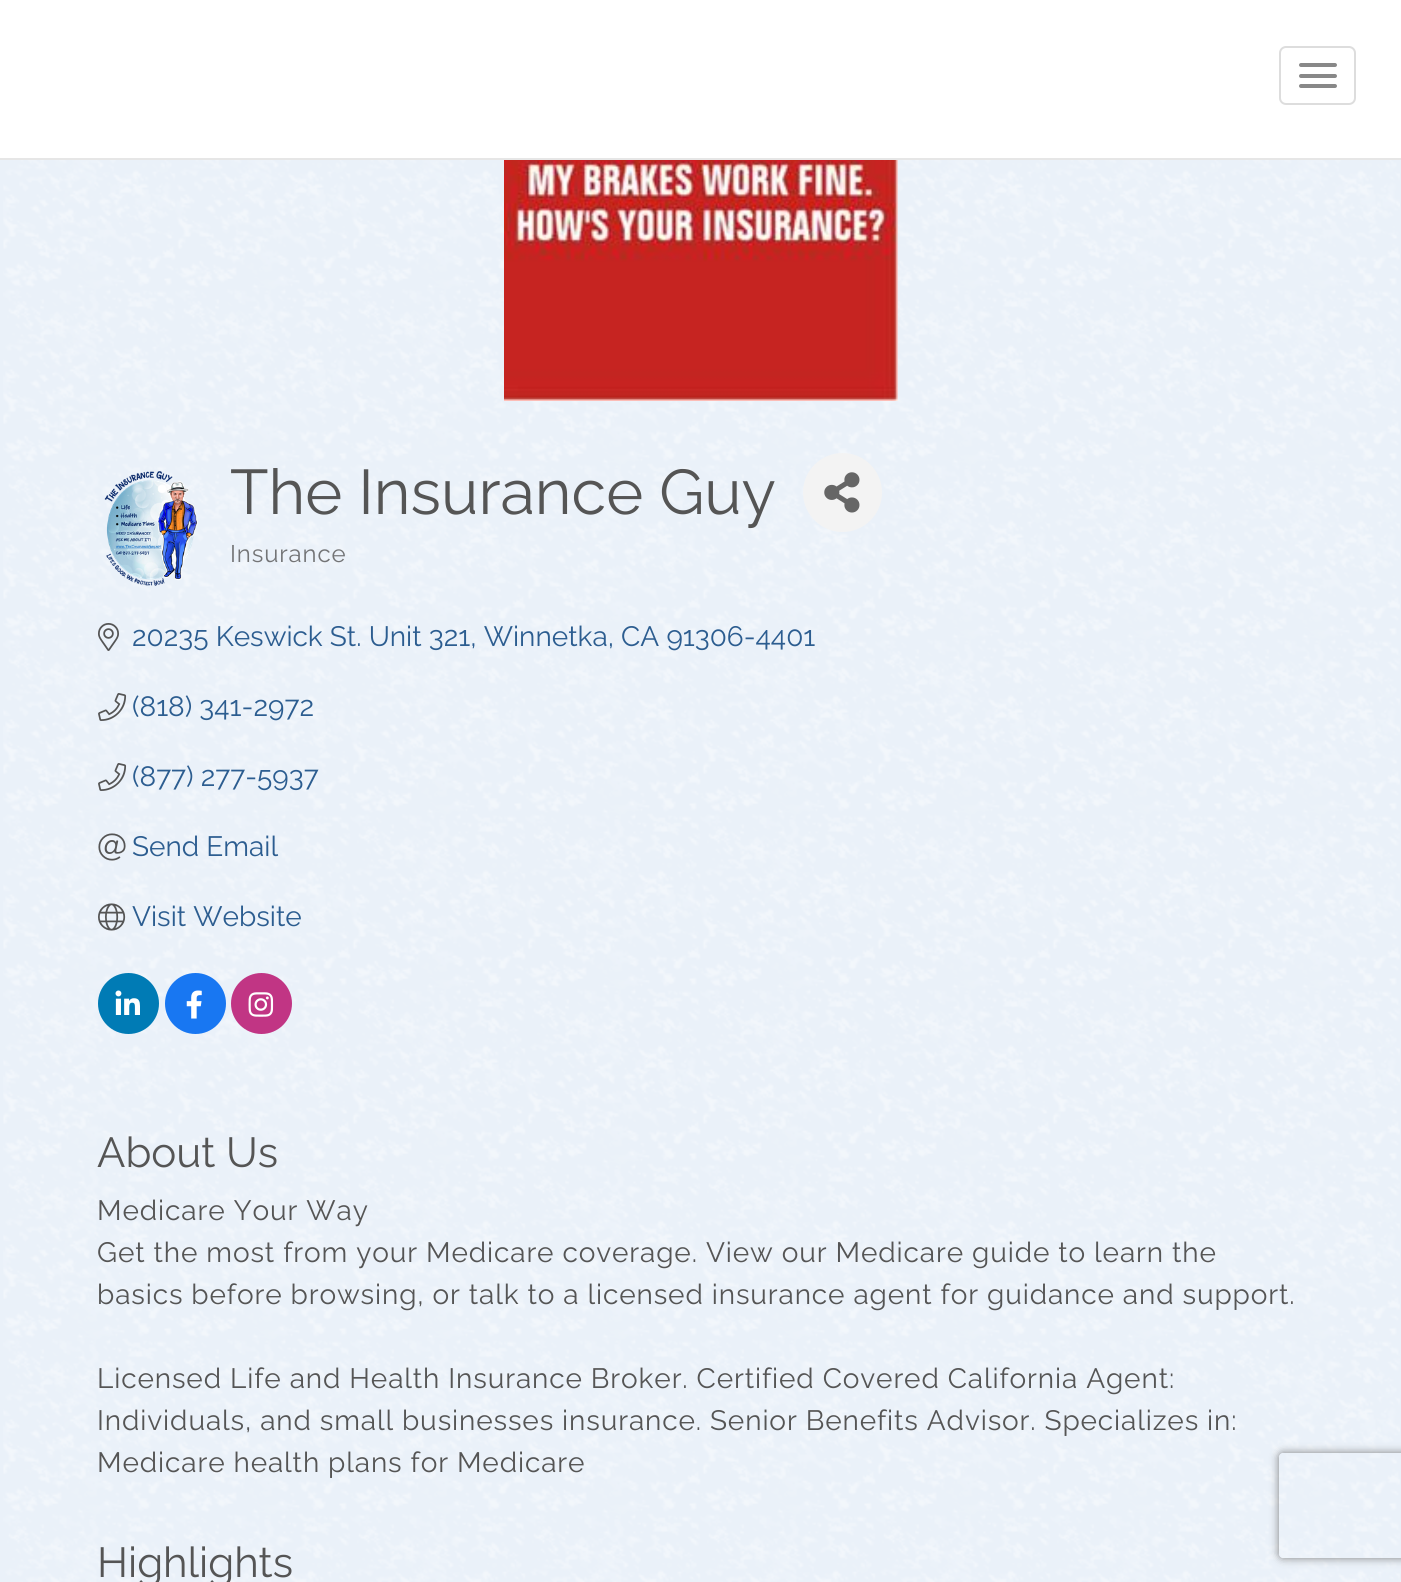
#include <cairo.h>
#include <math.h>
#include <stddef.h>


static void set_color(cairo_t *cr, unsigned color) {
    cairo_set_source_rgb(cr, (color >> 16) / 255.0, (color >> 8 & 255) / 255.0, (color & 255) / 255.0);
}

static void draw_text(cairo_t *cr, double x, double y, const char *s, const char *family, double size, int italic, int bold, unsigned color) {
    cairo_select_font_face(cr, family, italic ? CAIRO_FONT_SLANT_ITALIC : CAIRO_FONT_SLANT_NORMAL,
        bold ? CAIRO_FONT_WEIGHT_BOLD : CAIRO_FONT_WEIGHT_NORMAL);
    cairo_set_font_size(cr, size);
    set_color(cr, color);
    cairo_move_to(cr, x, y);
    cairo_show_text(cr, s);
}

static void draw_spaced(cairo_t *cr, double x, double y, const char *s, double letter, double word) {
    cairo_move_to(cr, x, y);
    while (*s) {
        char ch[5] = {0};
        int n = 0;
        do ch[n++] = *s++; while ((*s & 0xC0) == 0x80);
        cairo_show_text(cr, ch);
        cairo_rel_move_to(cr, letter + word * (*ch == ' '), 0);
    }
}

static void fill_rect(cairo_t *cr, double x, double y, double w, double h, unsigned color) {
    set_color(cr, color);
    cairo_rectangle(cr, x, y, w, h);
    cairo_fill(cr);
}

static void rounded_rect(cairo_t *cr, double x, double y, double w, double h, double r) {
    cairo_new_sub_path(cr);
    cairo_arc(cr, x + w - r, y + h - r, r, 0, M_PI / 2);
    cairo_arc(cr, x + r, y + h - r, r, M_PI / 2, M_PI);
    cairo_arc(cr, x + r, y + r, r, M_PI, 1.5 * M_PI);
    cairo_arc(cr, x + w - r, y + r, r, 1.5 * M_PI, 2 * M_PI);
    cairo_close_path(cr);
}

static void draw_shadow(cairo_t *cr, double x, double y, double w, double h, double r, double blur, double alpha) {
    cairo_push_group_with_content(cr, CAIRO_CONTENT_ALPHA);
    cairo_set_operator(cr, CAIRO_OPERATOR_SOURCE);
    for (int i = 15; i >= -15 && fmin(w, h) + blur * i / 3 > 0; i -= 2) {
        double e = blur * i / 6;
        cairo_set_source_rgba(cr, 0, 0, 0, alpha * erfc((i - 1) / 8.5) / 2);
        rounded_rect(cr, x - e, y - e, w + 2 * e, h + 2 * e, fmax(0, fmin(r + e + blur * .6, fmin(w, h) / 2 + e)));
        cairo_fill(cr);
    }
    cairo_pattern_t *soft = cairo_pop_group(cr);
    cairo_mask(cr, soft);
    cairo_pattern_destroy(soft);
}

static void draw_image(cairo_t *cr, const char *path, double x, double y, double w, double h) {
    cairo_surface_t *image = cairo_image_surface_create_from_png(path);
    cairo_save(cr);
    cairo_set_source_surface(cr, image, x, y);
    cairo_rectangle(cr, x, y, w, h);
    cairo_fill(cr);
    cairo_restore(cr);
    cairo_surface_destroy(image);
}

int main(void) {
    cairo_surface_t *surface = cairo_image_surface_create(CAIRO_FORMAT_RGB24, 1401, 1582);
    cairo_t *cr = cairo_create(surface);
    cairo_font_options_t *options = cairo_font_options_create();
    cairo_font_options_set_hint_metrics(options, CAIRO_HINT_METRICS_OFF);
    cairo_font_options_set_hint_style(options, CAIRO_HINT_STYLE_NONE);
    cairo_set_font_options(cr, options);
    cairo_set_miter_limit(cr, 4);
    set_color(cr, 0xEAF1F9);
    cairo_paint(cr);
    draw_image(cr, "assets/img1.png", 3, 160, 1397, 1422);
    fill_rect(cr, 0, 0, 1401, 158, 0xFFFFFF);
    fill_rect(cr, 0, 158, 1401, 2, 0xE6E6E6);
    rounded_rect(cr, 1280, 47, 75, 57, 6);
    set_color(cr, 0xDDDDDD);
    cairo_stroke(cr);
    set_color(cr, 0x888888);
    rounded_rect(cr, 1299, 63, 38, 4, 2);
    cairo_fill(cr);
    rounded_rect(cr, 1299, 74, 38, 4, 2);
    cairo_fill(cr);
    rounded_rect(cr, 1299, 84, 38, 4, 2);
    cairo_fill(cr);
    draw_image(cr, "assets/img2.png", 504, 160, 394, 241);
    draw_image(cr, "assets/img3.png", 104, 471, 94, 115);
    draw_text(cr, 230, 514, "The Insurance Guy", "Raleway", 63, 0, 0, 0x555555);
    set_color(cr, 0xF3F3F3);
    cairo_new_path(cr);
    cairo_arc(cr, 842.5, 492.5, 39.5, 0, 2 * M_PI);
    cairo_fill(cr);
    draw_image(cr, "assets/img4.png", 824, 472, 36, 41);
    cairo_set_font_size(cr, 24);
    set_color(cr, 0x737476);
    draw_spaced(cr, 230, 562, "Insurance", 0.88, 0);
    draw_image(cr, "assets/img5.png", 98, 623, 21, 28);
    draw_text(cr, 132, 646, "20235 Keswick St. Unit 321, Winnetka, CA 91306-4401", "Raleway", 28, 0, 0, 0x2C5D90);
    draw_image(cr, "assets/img6.png", 98, 693, 29, 28);
    draw_text(cr, 132, 716, "(818) 341-2972", "Raleway", 28, 0, 0, 0x2C5D90);
    draw_image(cr, "assets/img7.png", 98, 763, 29, 28);
    draw_text(cr, 132, 786, "(877) 277-5937", "Raleway", 28, 0, 0, 0x2C5D90);
    draw_image(cr, "assets/img8.png", 98, 833, 28, 28);
    draw_text(cr, 132, 856, "Send Email", "Raleway", 28, 0, 0, 0x2C5D90);
    draw_image(cr, "assets/img9.png", 98, 903, 28, 28);
    draw_text(cr, 132, 926, "Visit Website", "Raleway", 28, 0, 0, 0x2C5D90);
    set_color(cr, 0x007BB5);
    cairo_new_path(cr);
    cairo_arc(cr, 128.5, 1003.5, 30.5, 0, 2 * M_PI);
    cairo_fill(cr);
    draw_image(cr, "assets/img10.png", 115, 990, 25, 25);
    set_color(cr, 0x1877F2);
    cairo_arc(cr, 195.5, 1003.5, 30.5, 0, 2 * M_PI);
    cairo_fill(cr);
    draw_image(cr, "assets/img11.png", 186, 990, 16, 29);
    set_color(cr, 0xC13584);
    cairo_arc(cr, 261.5, 1003.5, 30.5, 0, 2 * M_PI);
    cairo_fill(cr);
    draw_image(cr, "assets/img12.png", 248, 992, 26, 25);
    draw_text(cr, 97, 1167, "About Us", "Raleway", 42, 0, 0, 0x555555);
    cairo_set_font_size(cr, 28);
    draw_spaced(cr, 97, 1220, "Medicare Your Way", 0.88, 0);
    draw_spaced(cr, 97, 1262, "Get the most from your Medicare coverage. View our Medicare guide to learn the", 0.88, 0);
    draw_spaced(cr, 97, 1304, "basics before browsing, or talk to a licensed insurance agent for guidance and support.", 0.88, 0);
    draw_spaced(cr, 97, 1388, "Licensed Life and Health Insurance Broker. Certified Covered California Agent:", 0.88, 0);
    draw_spaced(cr, 97, 1430, "Individuals, and small businesses insurance. Senior Benefits Advisor. Specializes in:", 0.88, 0);
    draw_spaced(cr, 97, 1472, "Medicare health plans for Medicare", 0.88, 0);
    draw_text(cr, 97, 1577, "Highlights", "Raleway", 42, 0, 0, 0x555555);
    cairo_save(cr);
    cairo_set_fill_rule(cr, CAIRO_FILL_RULE_EVEN_ODD);
    cairo_new_path(cr);
    cairo_move_to(cr, 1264, 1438);
    cairo_line_to(cr, 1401, 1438);
    cairo_line_to(cr, 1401, 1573);
    cairo_line_to(cr, 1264, 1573);
    cairo_close_path(cr);
    cairo_move_to(cr, 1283, 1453);
    cairo_line_to(cr, 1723, 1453);
    cairo_curve_to(cr, 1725, 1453, 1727, 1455, 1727, 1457);
    cairo_line_to(cr, 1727, 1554);
    cairo_curve_to(cr, 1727, 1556, 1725, 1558, 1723, 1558);
    cairo_line_to(cr, 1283, 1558);
    cairo_curve_to(cr, 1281, 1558, 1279, 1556, 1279, 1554);
    cairo_line_to(cr, 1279, 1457);
    cairo_curve_to(cr, 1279, 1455, 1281, 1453, 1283, 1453);
    cairo_close_path(cr);
    cairo_clip(cr);
    set_color(cr, 0x808080);
    draw_shadow(cr, 1279, 1453, 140, 105, 4, 4.5, 1);
    cairo_restore(cr);
    cairo_surface_write_to_png(surface, "output.png");
    cairo_font_options_destroy(options);
    cairo_destroy(cr);
    cairo_surface_destroy(surface);
    return 0;
}
